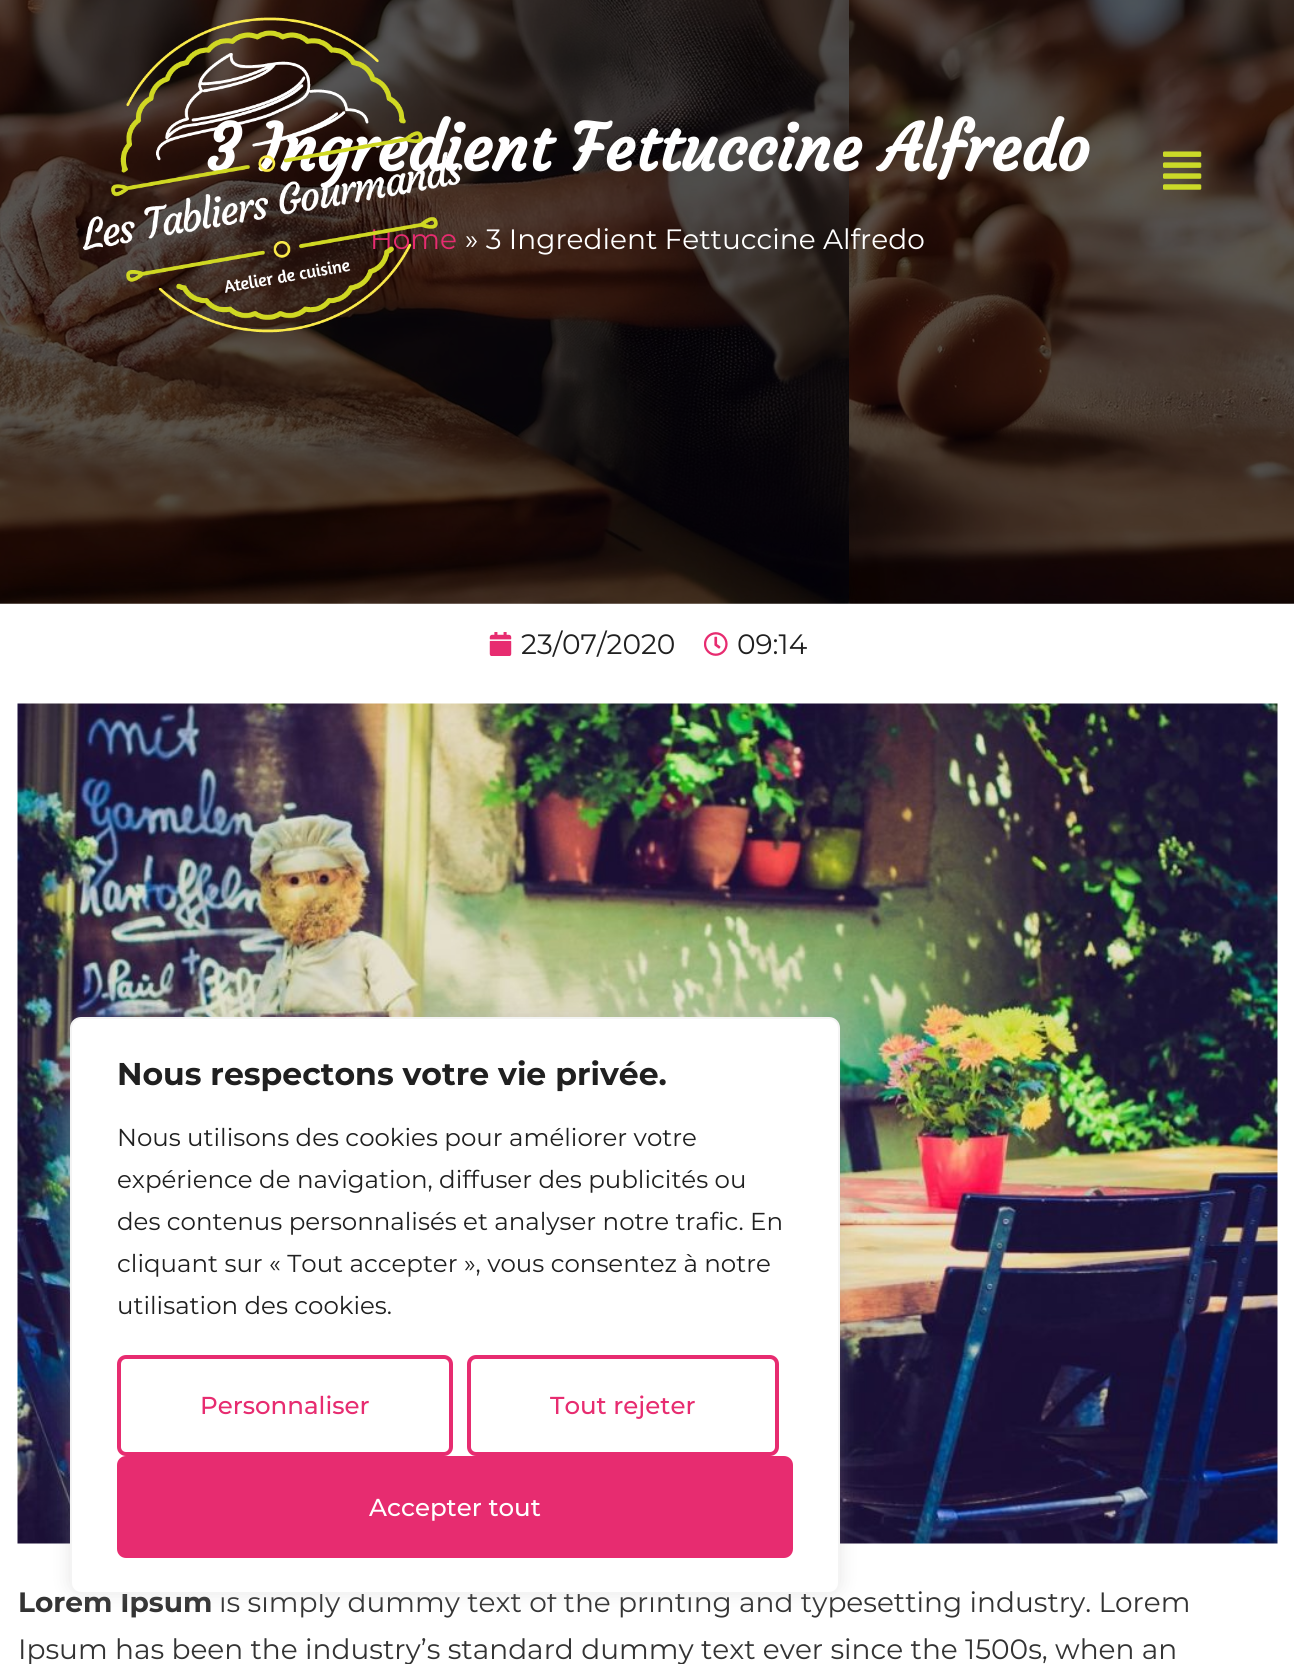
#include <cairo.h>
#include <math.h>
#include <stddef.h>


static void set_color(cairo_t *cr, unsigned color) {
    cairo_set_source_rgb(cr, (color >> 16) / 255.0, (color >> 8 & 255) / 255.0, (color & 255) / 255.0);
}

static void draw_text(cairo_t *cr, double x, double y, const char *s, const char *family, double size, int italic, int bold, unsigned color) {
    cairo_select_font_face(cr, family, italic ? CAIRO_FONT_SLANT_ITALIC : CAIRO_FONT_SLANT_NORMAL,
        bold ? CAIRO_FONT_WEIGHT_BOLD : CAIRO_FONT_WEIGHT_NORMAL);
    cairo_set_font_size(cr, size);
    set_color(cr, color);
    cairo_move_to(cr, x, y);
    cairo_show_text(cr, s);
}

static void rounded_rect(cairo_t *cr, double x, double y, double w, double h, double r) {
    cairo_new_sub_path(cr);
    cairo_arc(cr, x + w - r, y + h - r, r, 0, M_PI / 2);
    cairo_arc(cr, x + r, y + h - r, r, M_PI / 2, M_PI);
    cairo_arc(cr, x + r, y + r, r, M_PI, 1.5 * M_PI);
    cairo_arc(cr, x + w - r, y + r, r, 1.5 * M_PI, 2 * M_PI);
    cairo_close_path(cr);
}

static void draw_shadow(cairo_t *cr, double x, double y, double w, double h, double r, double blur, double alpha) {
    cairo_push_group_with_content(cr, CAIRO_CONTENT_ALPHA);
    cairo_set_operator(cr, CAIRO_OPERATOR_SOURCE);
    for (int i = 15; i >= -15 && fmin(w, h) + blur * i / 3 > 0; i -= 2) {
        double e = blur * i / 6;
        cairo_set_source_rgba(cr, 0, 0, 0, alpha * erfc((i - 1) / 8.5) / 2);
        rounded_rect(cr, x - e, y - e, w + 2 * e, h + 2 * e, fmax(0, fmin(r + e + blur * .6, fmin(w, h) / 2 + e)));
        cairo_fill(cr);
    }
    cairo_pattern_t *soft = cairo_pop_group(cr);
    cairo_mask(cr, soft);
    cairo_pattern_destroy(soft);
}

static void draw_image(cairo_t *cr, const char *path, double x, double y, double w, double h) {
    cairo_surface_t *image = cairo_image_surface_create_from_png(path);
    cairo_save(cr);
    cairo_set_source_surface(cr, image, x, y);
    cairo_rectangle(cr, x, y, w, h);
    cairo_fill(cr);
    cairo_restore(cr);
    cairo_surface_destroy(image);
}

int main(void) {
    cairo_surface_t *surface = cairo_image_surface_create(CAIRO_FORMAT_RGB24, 1294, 1664);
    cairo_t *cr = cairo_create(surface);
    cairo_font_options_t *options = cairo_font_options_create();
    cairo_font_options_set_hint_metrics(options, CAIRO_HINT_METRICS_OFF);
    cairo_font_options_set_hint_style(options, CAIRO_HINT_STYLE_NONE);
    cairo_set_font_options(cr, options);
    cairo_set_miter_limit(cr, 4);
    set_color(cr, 0xFFFFFF);
    cairo_paint(cr);
    draw_image(cr, "assets/img3.png", 0, 0, 1294, 604);
    draw_text(cr, 205, 171, "3 Ingredient Fettuccine Alfredo", "Courgette", 64.4, 0, 1, 0xFFFFFF);
    draw_text(cr, 370, 249, "Home", "Montserrat", 28, 0, 0, 0xE72C70);
    draw_image(cr, "assets/img1.png", 83, 17, 380, 316);
    draw_image(cr, "assets/img2.png", 1163, 151, 39, 39);
    draw_text(cr, 465, 249, "» 3 Ingredient Fettuccine Alfredo", "Montserrat", 28, 0, 0, 0xFFFFFF);
    draw_image(cr, "assets/img4.png", 489, 632, 23, 24);
    draw_text(cr, 521, 654, "23/07/2020", "Montserrat", 28, 0, 0, 0x202020);
    draw_image(cr, "assets/img5.png", 704, 632, 24, 24);
    draw_text(cr, 737, 654, "09:14", "Montserrat", 28, 0, 0, 0x202020);
    draw_image(cr, "assets/img6.png", 17, 703, 1261, 841);
    draw_text(cr, 18, 1612, "Lorem Ipsum", "Montserrat", 28, 0, 1, 0x333333);
    draw_text(cr, 219, 1612, "is simply dummy text of the printing and typesetting industry. Lorem", "Montserrat", 28, 0, 0, 0x333333);
    draw_text(cr, 18, 1659, "Ipsum has been the industry’s standard dummy text ever since the 1500s, when an", "Montserrat", 28, 0, 0, 0x333333);
    set_color(cr, 0xACABAB);
    draw_shadow(cr, 70, 1015, 770, 578, 11, 9, 0.3);
    set_color(cr, 0xFFFFFF);
    rounded_rect(cr, 71, 1018, 768, 575, 10);
    cairo_fill_preserve(cr);
    set_color(cr, 0xF4F4F4);
    cairo_stroke(cr);
    draw_text(cr, 117, 1085, "Nous respectons votre vie privée.", "Montserrat", 31.5, 0, 1, 0x202020);
    draw_text(cr, 117, 1146, "Nous utilisons des cookies pour améliorer votre", "Montserrat", 24.5, 0, 0, 0x202020);
    draw_text(cr, 117, 1188, "expérience de navigation, diffuser des publicités ou", "Montserrat", 24.5, 0, 0, 0x202020);
    draw_text(cr, 117, 1230, "des contenus personnalisés et analyser notre trafic. En", "Montserrat", 24.5, 0, 0, 0x202020);
    draw_text(cr, 117, 1272, "cliquant sur « Tout accepter », vous consentez à notre", "Montserrat", 24.5, 0, 0, 0x202020);
    draw_text(cr, 117, 1314, "utilisation des cookies.", "Montserrat", 24.5, 0, 0, 0x202020);
    rounded_rect(cr, 119, 1357, 332, 97, 7);
    set_color(cr, 0xE72C70);
    cairo_set_line_width(cr, 4);
    cairo_stroke(cr);
    draw_text(cr, 200, 1414, "Personnaliser", "Montserrat Medium", 24.5, 0, 0, 0xE72C70);
    rounded_rect(cr, 469, 1357, 308, 97, 7);
    cairo_stroke(cr);
    draw_text(cr, 550, 1414, "Tout rejeter", "Montserrat Medium", 24.5, 0, 0, 0xE72C70);
    rounded_rect(cr, 119, 1458, 672, 98, 7);
    cairo_fill_preserve(cr);
    cairo_stroke(cr);
    draw_text(cr, 369, 1516, "Accepter tout", "Montserrat Medium", 24.5, 0, 0, 0xFFFFFF);
    cairo_surface_write_to_png(surface, "output.png");
    cairo_font_options_destroy(options);
    cairo_destroy(cr);
    cairo_surface_destroy(surface);
    return 0;
}
